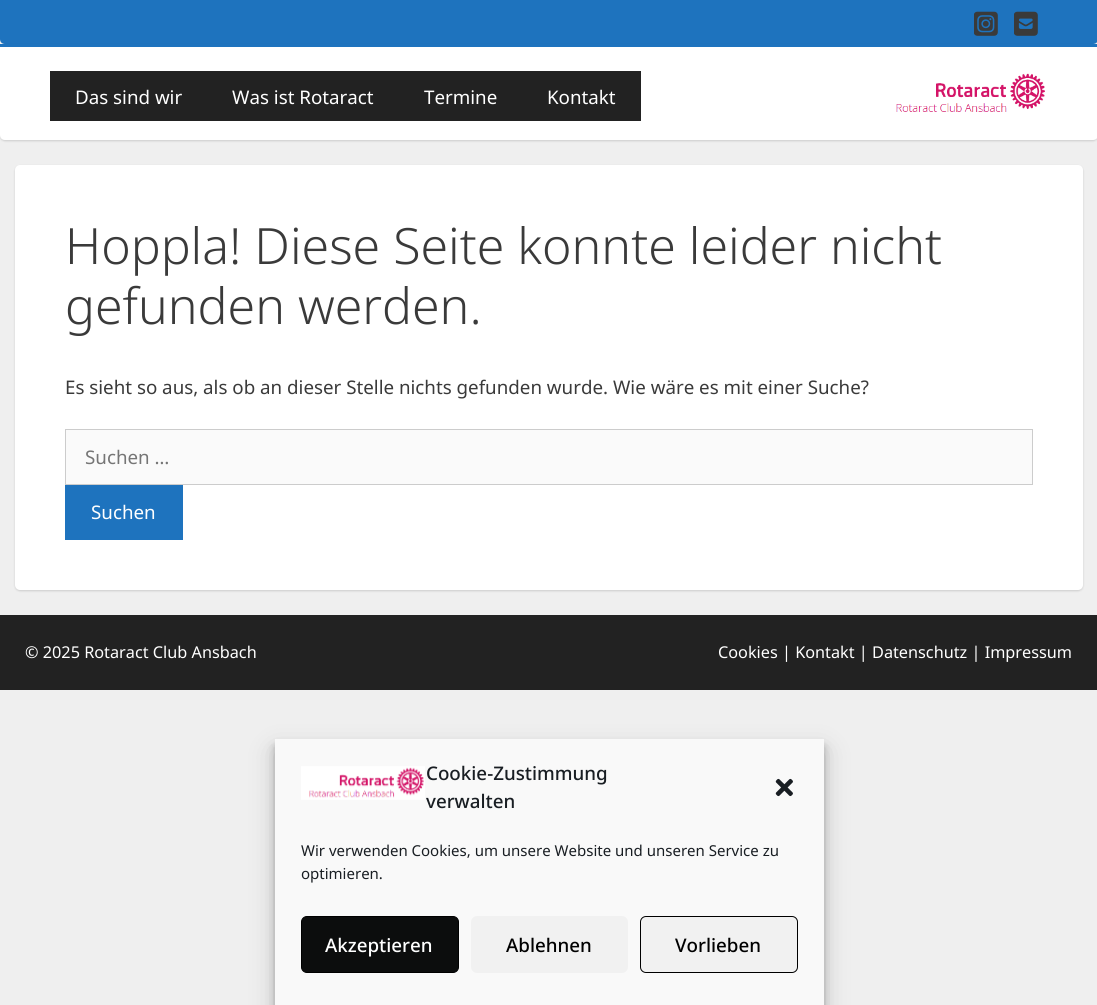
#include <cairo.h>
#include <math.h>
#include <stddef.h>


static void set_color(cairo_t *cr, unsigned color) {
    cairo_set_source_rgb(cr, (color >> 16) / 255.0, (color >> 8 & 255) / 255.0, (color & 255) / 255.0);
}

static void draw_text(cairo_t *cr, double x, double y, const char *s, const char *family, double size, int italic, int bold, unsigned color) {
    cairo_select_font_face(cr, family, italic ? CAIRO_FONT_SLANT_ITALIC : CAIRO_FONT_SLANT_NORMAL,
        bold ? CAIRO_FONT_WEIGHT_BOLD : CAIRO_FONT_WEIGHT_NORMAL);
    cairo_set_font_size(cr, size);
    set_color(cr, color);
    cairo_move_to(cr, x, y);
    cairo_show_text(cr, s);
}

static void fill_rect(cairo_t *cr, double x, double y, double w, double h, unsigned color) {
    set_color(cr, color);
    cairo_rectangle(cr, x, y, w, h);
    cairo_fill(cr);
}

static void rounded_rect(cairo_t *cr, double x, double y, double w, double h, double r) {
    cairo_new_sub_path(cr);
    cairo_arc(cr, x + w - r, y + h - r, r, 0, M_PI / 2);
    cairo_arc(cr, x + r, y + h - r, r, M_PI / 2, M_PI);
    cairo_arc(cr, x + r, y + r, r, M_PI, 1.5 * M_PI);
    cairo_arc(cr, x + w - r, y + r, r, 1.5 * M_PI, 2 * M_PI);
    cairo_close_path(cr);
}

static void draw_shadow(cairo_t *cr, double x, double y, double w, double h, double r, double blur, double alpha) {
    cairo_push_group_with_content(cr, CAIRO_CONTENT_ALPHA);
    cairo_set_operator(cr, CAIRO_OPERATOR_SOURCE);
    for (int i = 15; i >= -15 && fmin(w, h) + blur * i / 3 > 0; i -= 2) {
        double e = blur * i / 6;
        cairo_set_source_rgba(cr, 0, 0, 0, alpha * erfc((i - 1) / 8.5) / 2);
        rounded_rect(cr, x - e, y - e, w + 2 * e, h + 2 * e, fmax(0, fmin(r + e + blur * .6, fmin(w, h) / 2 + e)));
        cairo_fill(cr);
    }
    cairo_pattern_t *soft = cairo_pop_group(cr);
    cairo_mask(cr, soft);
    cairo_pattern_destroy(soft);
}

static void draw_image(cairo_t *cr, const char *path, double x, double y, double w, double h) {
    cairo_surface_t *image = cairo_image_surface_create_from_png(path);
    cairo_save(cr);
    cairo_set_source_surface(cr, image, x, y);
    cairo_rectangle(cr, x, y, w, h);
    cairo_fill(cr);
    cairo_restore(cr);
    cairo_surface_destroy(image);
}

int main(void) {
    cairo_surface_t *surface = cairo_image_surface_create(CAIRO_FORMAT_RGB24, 1097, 1005);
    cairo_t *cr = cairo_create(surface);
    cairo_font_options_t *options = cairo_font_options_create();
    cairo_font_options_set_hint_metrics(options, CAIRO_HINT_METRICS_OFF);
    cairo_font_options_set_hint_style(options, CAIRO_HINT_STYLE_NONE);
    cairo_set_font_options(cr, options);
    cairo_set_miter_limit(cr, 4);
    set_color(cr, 0xEFEFEF);
    cairo_paint(cr);
    set_color(cr, 0x1E73BE);
    cairo_new_path(cr);
    cairo_move_to(cr, 0, 0);
    cairo_line_to(cr, 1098, 0);
    cairo_line_to(cr, 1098, 39);
    cairo_curve_to(cr, 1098, 42, 1096, 44, 1093, 44);
    cairo_line_to(cr, 5, 44);
    cairo_curve_to(cr, 2, 44, 0, 42, 0, 39);
    cairo_close_path(cr);
    cairo_fill(cr);
    draw_image(cr, "assets/img1.png", 974, 11, 24, 25);
    draw_image(cr, "assets/img2.png", 1014, 11, 24, 25);
    set_color(cr, 0x000000);
    draw_shadow(cr, 0, 45, 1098, 96, 5, 1, 0.15);
    set_color(cr, 0xFFFFFF);
    cairo_new_path(cr);
    cairo_move_to(cr, 0, 44);
    cairo_line_to(cr, 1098, 44);
    cairo_line_to(cr, 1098, 135);
    cairo_curve_to(cr, 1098, 138, 1096, 140, 1093, 140);
    cairo_line_to(cr, 5, 140);
    cairo_curve_to(cr, 2, 140, 0, 138, 0, 135);
    cairo_close_path(cr);
    cairo_fill(cr);
    fill_rect(cr, 0, 44, 1097, 3, 0x1E73BE);
    fill_rect(cr, 50, 71, 591, 50, 0x222222);
    draw_text(cr, 75, 104, "Das sind wir", "Noto Sans", 18.75, 0, 0, 0xFFFFFF);
    draw_text(cr, 232, 104, "Was ist Rotaract", "Noto Sans", 18.75, 0, 0, 0xFFFFFF);
    draw_text(cr, 424, 104, "Termine", "Noto Sans", 18.75, 0, 0, 0xFFFFFF);
    draw_text(cr, 547, 104, "Kontakt", "Noto Sans", 18.75, 0, 0, 0xFFFFFF);
    draw_image(cr, "assets/img3.png", 896, 73, 149, 39);
    set_color(cr, 0x000000);
    draw_shadow(cr, 15, 166, 1068, 425, 5, 1, 0.15);
    set_color(cr, 0xFFFFFF);
    rounded_rect(cr, 15, 165, 1068, 425, 5);
    cairo_fill(cr);
    draw_text(cr, 65, 264, "Hoppla! Diese Seite konnte leider nicht", "Noto Sans Light", 50, 0, 0, 0x3A3A3A);
    draw_text(cr, 65, 324, "gefunden werden.", "Noto Sans Light", 50, 0, 0, 0x3A3A3A);
    draw_text(cr, 65, 394, "Es sieht so aus, als ob an dieser Stelle nichts gefunden wurde. Wie wäre es mit einer Suche?", "Noto Sans", 18.75, 0, 0, 0x3A3A3A);
    set_color(cr, 0xFAFAFA);
    cairo_rectangle(cr, 65.5, 429.5, 967, 55);
    cairo_fill_preserve(cr);
    set_color(cr, 0xCCCCCC);
    cairo_set_line_width(cr, 1);
    cairo_stroke(cr);
    draw_text(cr, 85, 464, "Suchen …", "Noto Sans", 18.75, 0, 0, 0x757575);
    fill_rect(cr, 65, 485, 118, 55, 0x1E73BE);
    draw_text(cr, 91, 519, "Suchen", "Noto Sans", 18.75, 0, 0, 0xFFFFFF);
    fill_rect(cr, 0, 615, 1097, 75, 0x222222);
    draw_text(cr, 25, 658, "© 2025 Rotaract Club Ansbach", "Noto Sans", 16.25, 0, 0, 0xFFFFFF);
    draw_text(cr, 718, 658, "Cookies | Kontakt | Datenschutz | Impressum", "Noto Sans", 16.25, 0, 0, 0xFFFFFF);
    set_color(cr, 0x000000);
    draw_shadow(cr, 275, 746, 549, 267, 0, 4, 0.23);
    draw_shadow(cr, 275, 751, 549, 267, 0, 12.5, 0.19);
    fill_rect(cr, 275, 739, 549, 266, 0xF9F9F9);
    draw_image(cr, "assets/img4.png", 301, 766, 124, 34);
    draw_text(cr, 426, 780, "Cookie-Zustimmung", "Noto Sans Medium", 18.75, 0, 0, 0x191E23);
    draw_text(cr, 426, 808, "verwalten", "Noto Sans Medium", 18.75, 0, 0, 0x191E23);
    draw_image(cr, "assets/img5.png", 775, 778, 18, 19);
    draw_text(cr, 301, 856, "Wir verwenden Cookies, um unsere Website und unseren Service zu", "Noto Sans", 15, 0, 0, 0x191E23);
    draw_text(cr, 301, 879, "optimieren.", "Noto Sans", 15, 0, 0, 0x191E23);
    set_color(cr, 0x0C0D0D);
    rounded_rect(cr, 301.5, 916.5, 157, 56, 5.5);
    cairo_fill_preserve(cr);
    set_color(cr, 0x000000);
    cairo_stroke(cr);
    draw_text(cr, 325, 952, "Akzeptieren", "Noto Sans Medium", 18.75, 0, 0, 0xFFFFFF);
    set_color(cr, 0xF1F1F1);
    rounded_rect(cr, 471, 916, 157, 57, 6);
    cairo_fill(cr);
    draw_text(cr, 506, 952, "Ablehnen", "Noto Sans Medium", 18.75, 0, 0, 0x000000);
    set_color(cr, 0xF1F1F1);
    rounded_rect(cr, 640.5, 916.5, 157, 56, 5.5);
    cairo_fill_preserve(cr);
    set_color(cr, 0x000000);
    cairo_stroke(cr);
    draw_text(cr, 675, 952, "Vorlieben", "Noto Sans Medium", 18.75, 0, 0, 0x000000);
    cairo_surface_write_to_png(surface, "output.png");
    cairo_font_options_destroy(options);
    cairo_destroy(cr);
    cairo_surface_destroy(surface);
    return 0;
}
